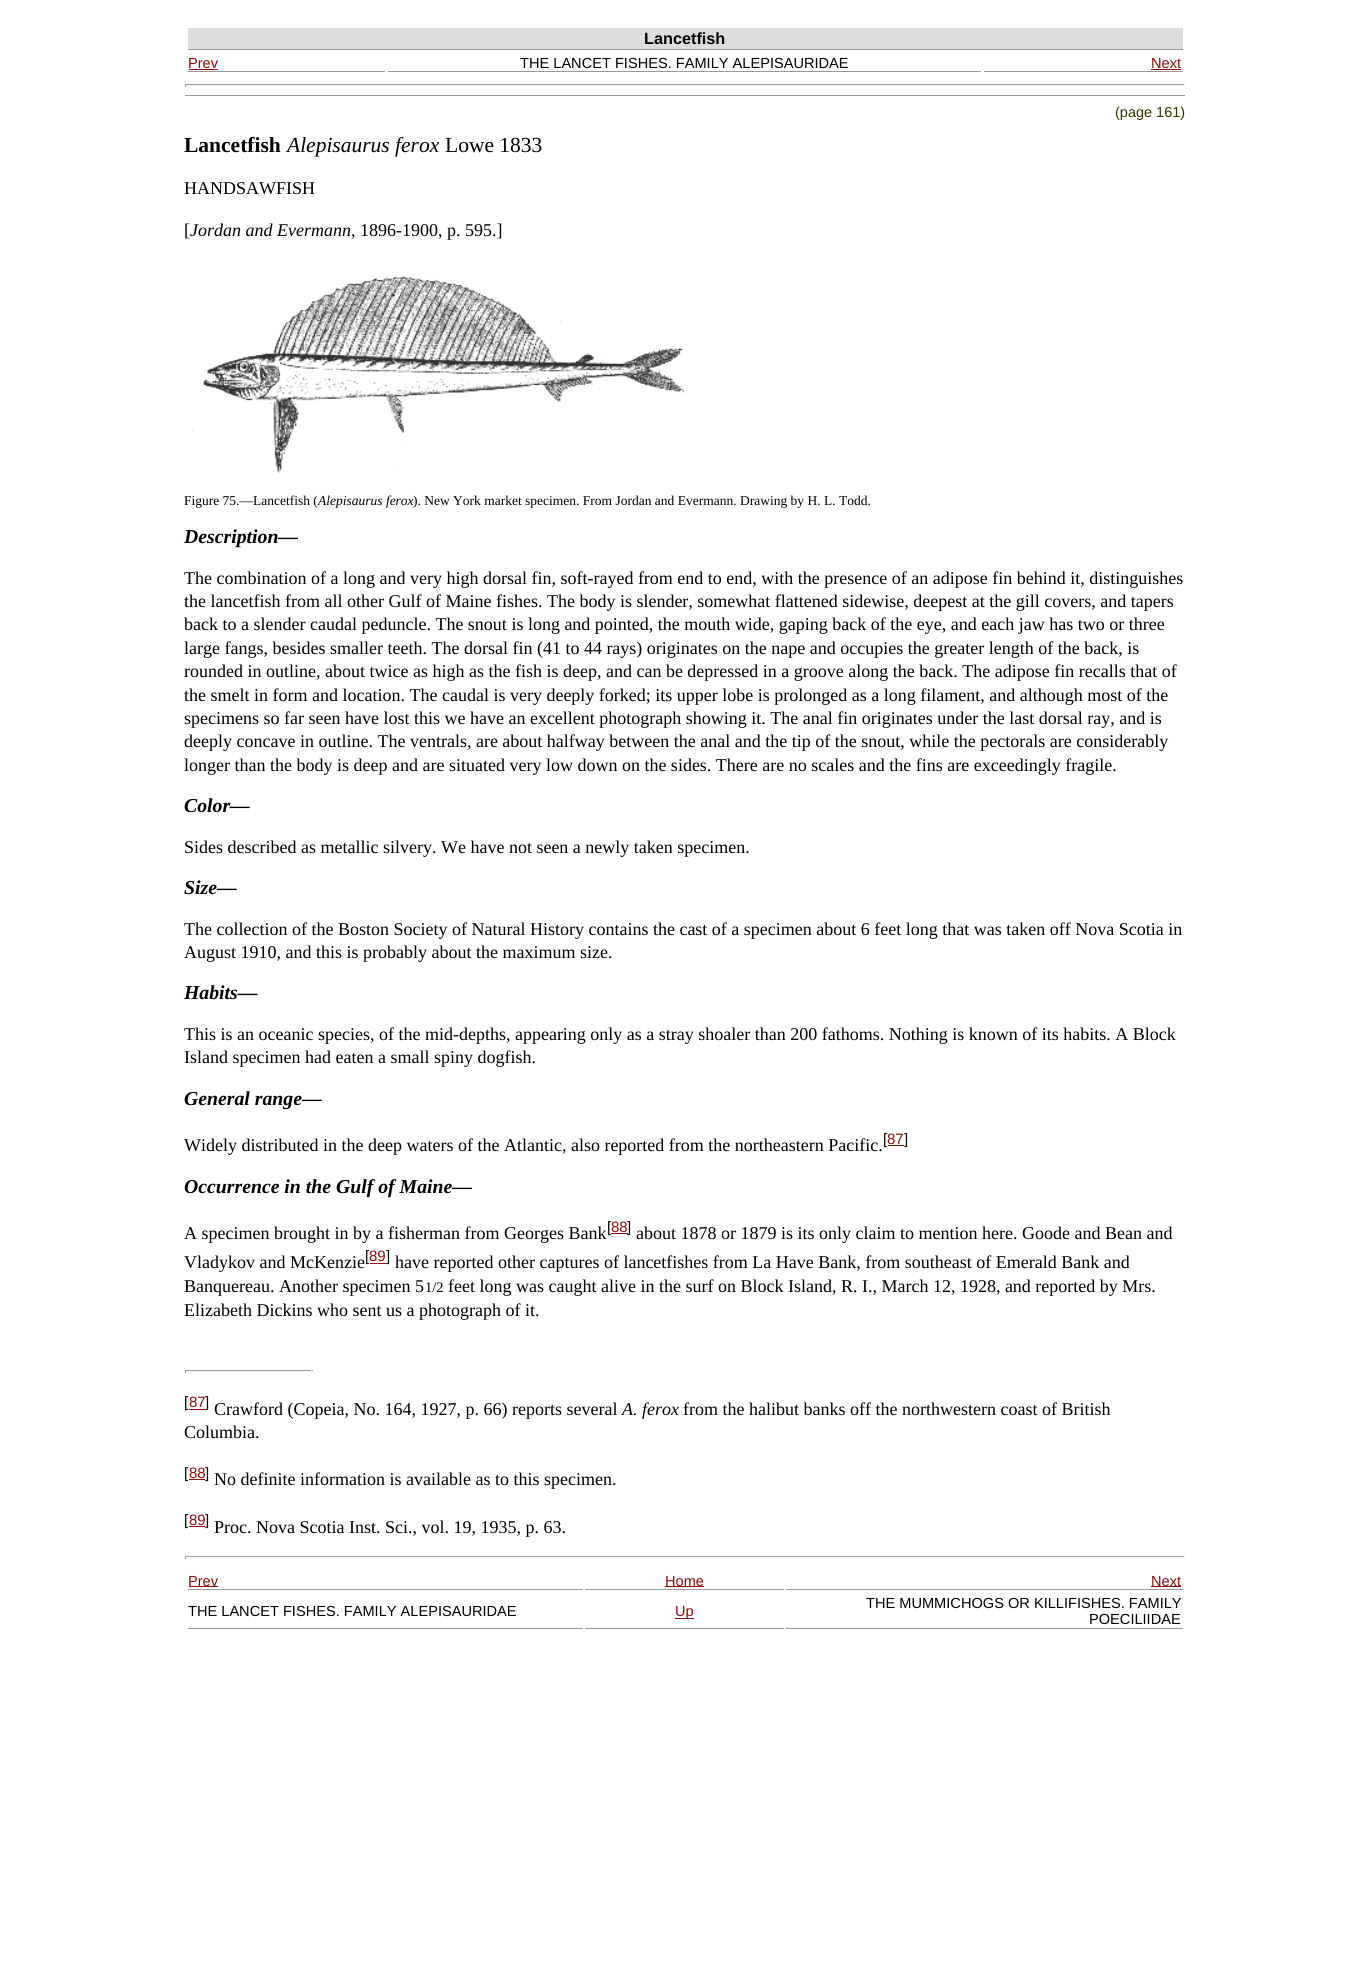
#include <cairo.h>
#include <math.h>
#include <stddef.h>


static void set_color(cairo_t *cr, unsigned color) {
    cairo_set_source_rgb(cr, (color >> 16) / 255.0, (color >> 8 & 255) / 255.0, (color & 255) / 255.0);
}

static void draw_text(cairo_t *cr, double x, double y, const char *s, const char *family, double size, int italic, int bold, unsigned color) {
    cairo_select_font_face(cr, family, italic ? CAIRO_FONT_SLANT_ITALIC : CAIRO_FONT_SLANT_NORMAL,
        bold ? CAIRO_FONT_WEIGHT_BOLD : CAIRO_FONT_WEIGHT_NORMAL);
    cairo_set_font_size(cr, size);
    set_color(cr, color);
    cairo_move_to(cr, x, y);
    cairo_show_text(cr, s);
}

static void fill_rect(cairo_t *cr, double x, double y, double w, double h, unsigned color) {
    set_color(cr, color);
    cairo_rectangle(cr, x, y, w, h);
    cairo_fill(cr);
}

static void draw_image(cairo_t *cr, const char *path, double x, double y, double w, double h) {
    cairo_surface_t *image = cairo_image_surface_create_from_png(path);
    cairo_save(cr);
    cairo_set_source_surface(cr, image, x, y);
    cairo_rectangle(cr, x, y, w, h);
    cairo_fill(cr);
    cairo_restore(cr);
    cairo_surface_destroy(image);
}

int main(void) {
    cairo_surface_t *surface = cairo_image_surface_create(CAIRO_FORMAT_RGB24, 1368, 1964);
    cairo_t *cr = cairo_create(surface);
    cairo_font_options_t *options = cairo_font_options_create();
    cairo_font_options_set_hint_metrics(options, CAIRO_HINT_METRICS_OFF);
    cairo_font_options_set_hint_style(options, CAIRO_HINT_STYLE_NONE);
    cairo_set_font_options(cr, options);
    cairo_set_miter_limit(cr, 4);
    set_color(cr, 0xFFFFFF);
    cairo_paint(cr);
    fill_rect(cr, 185, 95, 1000, 1, 0x999999);
    fill_rect(cr, 188, 28, 995, 21, 0xDDDDDD);
    fill_rect(cr, 188, 49, 995, 1, 0x999999);
    draw_text(cr, 644, 44, "Lancetfish", "Liberation Sans", 16.25, 0, 1, 0x000000);
    fill_rect(cr, 188, 71, 197, 1, 0x999999);
    draw_text(cr, 188, 68, "Prev", "Liberation Sans", 14.6, 0, 0, 0x900B09);
    fill_rect(cr, 189, 69, 29, 1, 0x900B09);
    fill_rect(cr, 388, 71, 593, 1, 0x999999);
    draw_text(cr, 520, 68, "THE LANCET FISHES. FAMILY ALEPISAURIDAE", "Liberation Sans", 14.6, 0, 0, 0x000000);
    fill_rect(cr, 984, 71, 199, 1, 0x999999);
    draw_text(cr, 1151, 68, "Next", "Liberation Sans", 14.6, 0, 0, 0x900B09);
    fill_rect(cr, 1151, 69, 30, 1, 0x900B09);
    fill_rect(cr, 185, 84, 1000, 1, 0x9F9F9F);
    fill_rect(cr, 1184, 84, 1, 3, 0xEEEEEE);
    fill_rect(cr, 185, 85, 1000, 1, 0xEEEEEE);
    fill_rect(cr, 185, 84, 1, 3, 0x9F9F9F);
    draw_text(cr, 1115, 117, "(page 161)", "Liberation Sans", 14.5, 0, 0, 0x333300);
    draw_text(cr, 184, 152, "Lancetfish", "Liberation Serif", 21.5, 0, 1, 0x000000);
    draw_text(cr, 287, 152, "Alepisaurus ferox", "Liberation Serif", 21.5, 1, 0, 0x000000);
    draw_text(cr, 445, 152, "Lowe 1833", "Liberation Serif", 21.5, 0, 0, 0x000000);
    draw_text(cr, 184, 194, "HANDSAWFISH", "Liberation Serif", 18, 0, 0, 0x000000);
    draw_text(cr, 184, 236, "[", "Liberation Serif", 18, 0, 0, 0x000000);
    draw_text(cr, 190, 236, "Jordan and Evermann", "Liberation Serif", 18, 1, 0, 0x000000);
    draw_text(cr, 351, 236, ", 1896-1900, p. 595.]", "Liberation Serif", 18, 0, 0, 0x000000);
    draw_image(cr, "assets/img1.png", 192, 276, 492, 197);
    draw_text(cr, 184, 505, "Figure 75.—Lancetfish (", "Liberation Serif", 13.5, 0, 0, 0x000000);
    draw_text(cr, 318, 505, "Alepisaurus ferox", "Liberation Serif", 13.5, 1, 0, 0x000000);
    draw_text(cr, 413, 505, "). New York market specimen. From Jordan and Evermann. Drawing by H. L. Todd.", "Liberation Serif", 13.5, 0, 0, 0x000000);
    draw_text(cr, 184, 543, "Description—", "Liberation Serif", 19.75, 1, 1, 0x000000);
    draw_text(cr, 184, 584, "The combination of a long and very high dorsal fin, soft-rayed from end to end, with the presence of an adipose fin behind it, distinguishes", "Liberation Serif", 18, 0, 0, 0x000000);
    draw_text(cr, 184, 607, "the lancetfish from all other Gulf of Maine fishes. The body is slender, somewhat flattened sidewise, deepest at the gill covers, and tapers", "Liberation Serif", 18, 0, 0, 0x000000);
    draw_text(cr, 184, 630, "back to a slender caudal peduncle. The snout is long and pointed, the mouth wide, gaping back of the eye, and each jaw has two or three", "Liberation Serif", 18, 0, 0, 0x000000);
    draw_text(cr, 184, 654, "large fangs, besides smaller teeth. The dorsal fin (41 to 44 rays) originates on the nape and occupies the greater length of the back, is", "Liberation Serif", 18, 0, 0, 0x000000);
    draw_text(cr, 184, 677, "rounded in outline, about twice as high as the fish is deep, and can be depressed in a groove along the back. The adipose fin recalls that of", "Liberation Serif", 18, 0, 0, 0x000000);
    draw_text(cr, 184, 701, "the smelt in form and location. The caudal is very deeply forked; its upper lobe is prolonged as a long filament, and although most of the", "Liberation Serif", 18, 0, 0, 0x000000);
    draw_text(cr, 184, 724, "specimens so far seen have lost this we have an excellent photograph showing it. The anal fin originates under the last dorsal ray, and is", "Liberation Serif", 18, 0, 0, 0x000000);
    draw_text(cr, 184, 747, "deeply concave in outline. The ventrals, are about halfway between the anal and the tip of the snout, while the pectorals are considerably", "Liberation Serif", 18, 0, 0, 0x000000);
    draw_text(cr, 184, 771, "longer than the body is deep and are situated very low down on the sides. There are no scales and the fins are exceedingly fragile.", "Liberation Serif", 18, 0, 0, 0x000000);
    draw_text(cr, 184, 812, "Color—", "Liberation Serif", 19.75, 1, 1, 0x000000);
    draw_text(cr, 184, 853, "Sides described as metallic silvery. We have not seen a newly taken specimen.", "Liberation Serif", 18, 0, 0, 0x000000);
    draw_text(cr, 184, 894, "Size—", "Liberation Serif", 19.75, 1, 1, 0x000000);
    draw_text(cr, 184, 935, "The collection of the Boston Society of Natural History contains the cast of a specimen about 6 feet long that was taken off Nova Scotia in", "Liberation Serif", 18, 0, 0, 0x000000);
    draw_text(cr, 184, 958, "August 1910, and this is probably about the maximum size.", "Liberation Serif", 18, 0, 0, 0x000000);
    draw_text(cr, 184, 999, "Habits—", "Liberation Serif", 19.75, 1, 1, 0x000000);
    draw_text(cr, 184, 1040, "This is an oceanic species, of the mid-depths, appearing only as a stray shoaler than 200 fathoms. Nothing is known of its habits. A Block", "Liberation Serif", 18, 0, 0, 0x000000);
    draw_text(cr, 184, 1063, "Island specimen had eaten a small spiny dogfish.", "Liberation Serif", 18, 0, 0, 0x000000);
    draw_text(cr, 184, 1105, "General range—", "Liberation Serif", 19.75, 1, 1, 0x000000);
    draw_text(cr, 184, 1151, "Widely distributed in the deep waters of the Atlantic, also reported from the northeastern Pacific.", "Liberation Serif", 18, 0, 0, 0x000000);
    draw_text(cr, 883, 1144, "[", "Liberation Sans", 15, 0, 0, 0x000000);
    draw_text(cr, 887, 1144, "87", "Liberation Sans", 15, 0, 0, 0x900B09);
    fill_rect(cr, 888, 1145, 16, 1, 0x900B09);
    draw_text(cr, 904, 1144, "]", "Liberation Sans", 15, 0, 0, 0x000000);
    draw_text(cr, 184, 1193, "Occurrence in the Gulf of Maine—", "Liberation Serif", 19.75, 1, 1, 0x000000);
    draw_text(cr, 184, 1239, "A specimen brought in by a fisherman from Georges Bank", "Liberation Serif", 18, 0, 0, 0x000000);
    draw_text(cr, 607, 1232, "[", "Liberation Sans", 15, 0, 0, 0x000000);
    fill_rect(cr, 611, 1233, 17, 1, 0x900B09);
    draw_text(cr, 611, 1232, "88", "Liberation Sans", 15, 0, 0, 0x900B09);
    draw_text(cr, 627, 1232, "]", "Liberation Sans", 15, 0, 0, 0x000000);
    draw_text(cr, 636, 1239, "about 1878 or 1879 is its only claim to mention here. Goode and Bean and", "Liberation Serif", 18, 0, 0, 0x000000);
    draw_text(cr, 184, 1268, "Vladykov and McKenzie", "Liberation Serif", 18, 0, 0, 0x000000);
    draw_text(cr, 365, 1261, "[", "Liberation Sans", 15, 0, 0, 0x000000);
    fill_rect(cr, 370, 1263, 16, 1, 0x900B09);
    draw_text(cr, 369, 1261, "89", "Liberation Sans", 15, 0, 0, 0x900B09);
    draw_text(cr, 386, 1261, "]", "Liberation Sans", 15, 0, 0, 0x000000);
    draw_text(cr, 395, 1268, "have reported other captures of lancetfishes from La Have Bank, from southeast of Emerald Bank and", "Liberation Serif", 18, 0, 0, 0x000000);
    draw_text(cr, 184, 1292, "Banquereau. Another specimen 5", "Liberation Serif", 18, 0, 0, 0x000000);
    draw_text(cr, 425, 1292, "1/2", "Liberation Serif", 14.5, 0, 0, 0x000000);
    draw_text(cr, 448, 1292, "feet long was caught alive in the surf on Block Island, R. I., March 12, 1928, and reported by Mrs.", "Liberation Serif", 18, 0, 0, 0x000000);
    draw_text(cr, 184, 1316, "Elizabeth Dickins who sent us a photograph of it.", "Liberation Serif", 18, 0, 0, 0x000000);
    fill_rect(cr, 185, 1370, 128, 1, 0x9F9F9F);
    fill_rect(cr, 311, 1370, 1, 3, 0xEEEEEE);
    fill_rect(cr, 185, 1371, 128, 1, 0xEEEEEE);
    fill_rect(cr, 185, 1370, 1, 3, 0x9F9F9F);
    draw_text(cr, 184, 1407, "[", "Liberation Sans", 15, 0, 0, 0x000000);
    fill_rect(cr, 189, 1409, 16, 1, 0x900B09);
    draw_text(cr, 189, 1407, "87", "Liberation Sans", 15, 0, 0, 0x900B09);
    draw_text(cr, 205, 1407, "]", "Liberation Sans", 15, 0, 0, 0x000000);
    draw_text(cr, 214, 1415, "Crawford (Copeia, No. 164, 1927, p. 66) reports several", "Liberation Serif", 18, 0, 0, 0x000000);
    draw_text(cr, 622, 1415, "A. ferox", "Liberation Serif", 18, 1, 0, 0x000000);
    draw_text(cr, 683, 1415, "from the halibut banks off the northwestern coast of British", "Liberation Serif", 18, 0, 0, 0x000000);
    draw_text(cr, 184, 1438, "Columbia.", "Liberation Serif", 18, 0, 0, 0x000000);
    draw_text(cr, 184, 1478, "[", "Liberation Sans", 15, 0, 0, 0x000000);
    fill_rect(cr, 189, 1479, 16, 1, 0x900B09);
    draw_text(cr, 189, 1478, "88", "Liberation Sans", 15, 0, 0, 0x900B09);
    draw_text(cr, 205, 1478, "]", "Liberation Sans", 15, 0, 0, 0x000000);
    draw_text(cr, 214, 1485, "No definite information is available as to this specimen.", "Liberation Serif", 18, 0, 0, 0x000000);
    draw_text(cr, 184, 1525, "[", "Liberation Sans", 15, 0, 0, 0x000000);
    fill_rect(cr, 189, 1526, 16, 1, 0x900B09);
    draw_text(cr, 189, 1525, "89", "Liberation Sans", 15, 0, 0, 0x900B09);
    draw_text(cr, 205, 1525, "]", "Liberation Sans", 15, 0, 0, 0x000000);
    draw_text(cr, 214, 1533, "Proc. Nova Scotia Inst. Sci., vol. 19, 1935, p. 63.", "Liberation Serif", 18, 0, 0, 0x000000);
    fill_rect(cr, 185, 1556, 1000, 1, 0x9F9F9F);
    fill_rect(cr, 1184, 1556, 1, 3, 0xEEEEEE);
    fill_rect(cr, 185, 1558, 1000, 1, 0xEEEEEE);
    fill_rect(cr, 185, 1556, 1, 3, 0x9F9F9F);
    fill_rect(cr, 188, 1589, 395, 1, 0x999999);
    fill_rect(cr, 189, 1586, 29, 1, 0x900B09);
    draw_text(cr, 188, 1586, "Prev", "Liberation Sans", 14.6, 0, 0, 0x900B09);
    fill_rect(cr, 585, 1589, 199, 1, 0x999999);
    fill_rect(cr, 665, 1586, 39, 1, 0x900B09);
    draw_text(cr, 665, 1586, "Home", "Liberation Sans", 14.6, 0, 0, 0x900B09);
    fill_rect(cr, 786, 1589, 397, 1, 0x999999);
    fill_rect(cr, 1151, 1586, 30, 1, 0x900B09);
    draw_text(cr, 1151, 1586, "Next", "Liberation Sans", 14.6, 0, 0, 0x900B09);
    fill_rect(cr, 188, 1628, 395, 1, 0x999999);
    draw_text(cr, 188, 1616, "THE LANCET FISHES. FAMILY ALEPISAURIDAE", "Liberation Sans", 14.6, 0, 0, 0x000000);
    fill_rect(cr, 585, 1628, 199, 1, 0x999999);
    fill_rect(cr, 675, 1618, 19, 1, 0x900B09);
    draw_text(cr, 675, 1616, "Up", "Liberation Sans", 14.6, 0, 0, 0x900B09);
    fill_rect(cr, 786, 1628, 397, 1, 0x999999);
    draw_text(cr, 866, 1608, "THE MUMMICHOGS OR KILLIFISHES. FAMILY", "Liberation Sans", 14.6, 0, 0, 0x000000);
    draw_text(cr, 1089, 1624, "POECILIIDAE", "Liberation Sans", 14.6, 0, 0, 0x000000);
    cairo_surface_write_to_png(surface, "output.png");
    cairo_font_options_destroy(options);
    cairo_destroy(cr);
    cairo_surface_destroy(surface);
    return 0;
}
